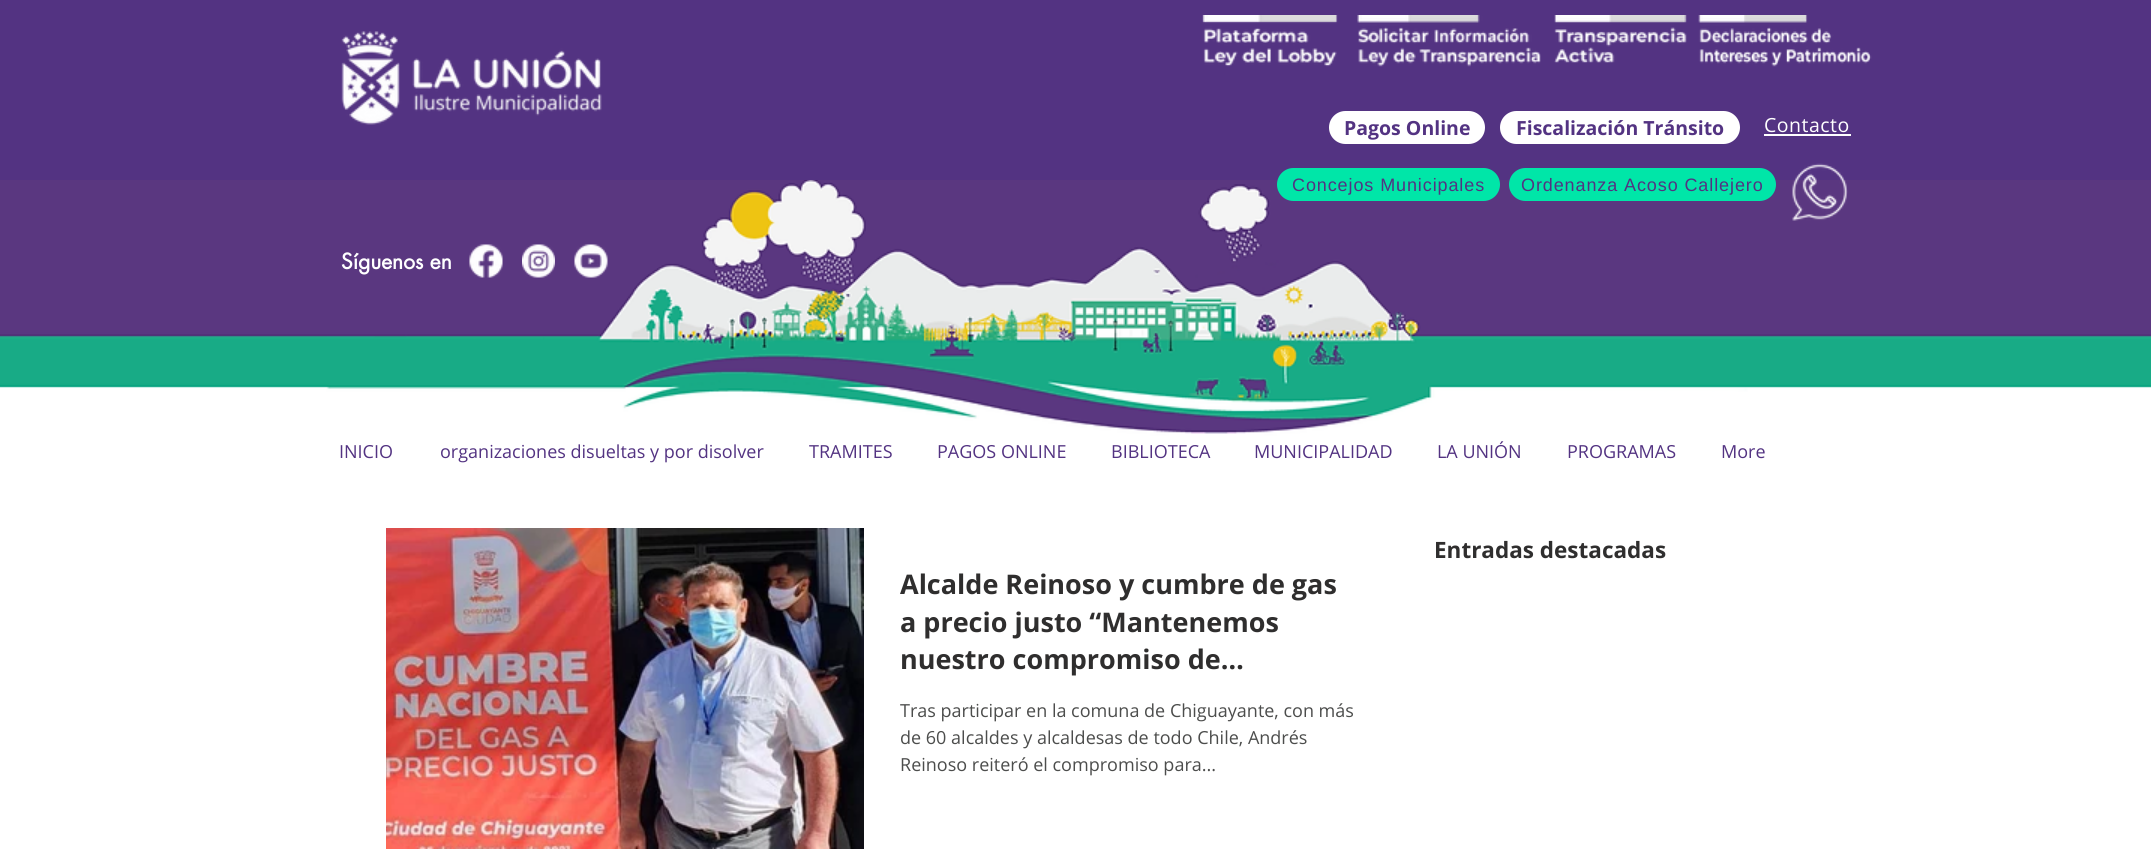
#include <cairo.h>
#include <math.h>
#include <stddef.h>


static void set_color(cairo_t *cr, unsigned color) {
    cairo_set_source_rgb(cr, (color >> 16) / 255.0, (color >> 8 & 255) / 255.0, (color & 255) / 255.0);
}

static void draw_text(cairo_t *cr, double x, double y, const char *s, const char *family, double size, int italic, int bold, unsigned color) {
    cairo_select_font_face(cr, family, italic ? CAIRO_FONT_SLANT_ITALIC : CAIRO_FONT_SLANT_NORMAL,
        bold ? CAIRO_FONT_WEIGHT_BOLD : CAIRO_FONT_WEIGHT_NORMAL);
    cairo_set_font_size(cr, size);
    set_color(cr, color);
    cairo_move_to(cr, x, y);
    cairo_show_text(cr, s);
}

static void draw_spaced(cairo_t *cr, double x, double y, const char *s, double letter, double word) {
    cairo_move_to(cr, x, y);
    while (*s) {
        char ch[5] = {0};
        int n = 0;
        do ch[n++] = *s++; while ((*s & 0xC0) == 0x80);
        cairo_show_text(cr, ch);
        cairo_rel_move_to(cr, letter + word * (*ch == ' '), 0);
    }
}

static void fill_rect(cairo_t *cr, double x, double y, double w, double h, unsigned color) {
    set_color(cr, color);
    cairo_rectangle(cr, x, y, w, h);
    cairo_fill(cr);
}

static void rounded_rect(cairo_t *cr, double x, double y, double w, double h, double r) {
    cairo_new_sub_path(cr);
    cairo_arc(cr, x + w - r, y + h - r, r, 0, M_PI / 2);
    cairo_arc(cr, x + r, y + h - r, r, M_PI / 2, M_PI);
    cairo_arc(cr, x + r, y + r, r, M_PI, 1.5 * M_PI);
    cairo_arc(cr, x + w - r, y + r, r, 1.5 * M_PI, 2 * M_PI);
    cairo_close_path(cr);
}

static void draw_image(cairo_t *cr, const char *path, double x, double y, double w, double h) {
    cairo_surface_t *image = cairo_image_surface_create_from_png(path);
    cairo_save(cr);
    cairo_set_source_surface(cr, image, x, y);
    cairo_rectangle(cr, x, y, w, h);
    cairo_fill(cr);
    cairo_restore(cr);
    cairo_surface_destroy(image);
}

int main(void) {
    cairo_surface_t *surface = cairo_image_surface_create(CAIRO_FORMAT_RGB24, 2151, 849);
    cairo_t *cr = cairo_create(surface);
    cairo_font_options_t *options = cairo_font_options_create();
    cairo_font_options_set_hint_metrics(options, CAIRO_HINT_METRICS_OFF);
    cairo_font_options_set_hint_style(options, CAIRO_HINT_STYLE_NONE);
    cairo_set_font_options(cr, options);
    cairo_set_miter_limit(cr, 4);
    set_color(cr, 0xFFFFFF);
    cairo_paint(cr);
    fill_rect(cr, 0, 0, 2151, 180, 0x533382);
    draw_image(cr, "assets/img1.png", 341, 31, 261, 94);
    draw_image(cr, "assets/img2.png", 1202, 15, 136, 52);
    draw_image(cr, "assets/img3.png", 1357, 15, 184, 52);
    draw_image(cr, "assets/img4.png", 1554, 15, 133, 48);
    draw_image(cr, "assets/img5.png", 1698, 15, 174, 52);
    set_color(cr, 0xFFFFFF);
    rounded_rect(cr, 1329, 111, 156, 33, 16.5);
    cairo_fill(cr);
    draw_text(cr, 1344, 135, "Pagos Online", "Open Sans", 19.5, 0, 1, 0x533382);
    set_color(cr, 0xFFFFFF);
    rounded_rect(cr, 1500, 111, 240, 33, 16.5);
    cairo_fill(cr);
    draw_text(cr, 1516, 135, "Fiscalización Tránsito", "Open Sans", 19.5, 0, 1, 0x533382);
    cairo_select_font_face(cr, "Open Sans", CAIRO_FONT_SLANT_NORMAL, CAIRO_FONT_WEIGHT_NORMAL);
    set_color(cr, 0xFFFFFF);
    draw_spaced(cr, 1764, 132, "Contacto", 0.5, 0);
    fill_rect(cr, 1764, 134, 87, 2, 0xFFFFFF);
    draw_image(cr, "assets/img7.png", 0, 180, 2151, 303);
    set_color(cr, 0x00E6A8);
    rounded_rect(cr, 1277, 168, 223, 33, 16.5);
    cairo_fill(cr);
    cairo_select_font_face(cr, "Liberation Sans", CAIRO_FONT_SLANT_NORMAL, CAIRO_FONT_WEIGHT_NORMAL);
    cairo_set_font_size(cr, 18);
    set_color(cr, 0x533382);
    draw_spaced(cr, 1292, 191, "Concejos Municipales", 0.9, 0);
    set_color(cr, 0x00E6A8);
    rounded_rect(cr, 1509, 168, 267, 33, 16.5);
    cairo_fill(cr);
    set_color(cr, 0x533382);
    draw_spaced(cr, 1521, 191, "Ordenanza Acoso Callejero", 0.9, 0);
    draw_image(cr, "assets/img6.png", 1792, 163, 56, 58);
    draw_text(cr, 341, 269, "Síguenos en", "futura", 21, 0, 1, 0xFFFFFF);
    draw_image(cr, "assets/img8.png", 469, 244, 34, 34);
    draw_image(cr, "assets/img9.png", 522, 244, 33, 34);
    draw_image(cr, "assets/img10.png", 574, 244, 34, 34);
    draw_text(cr, 339, 458, "INICIO", "Open Sans", 18, 0, 0, 0x533382);
    draw_text(cr, 440, 458, "organizaciones disueltas y por disolver", "Open Sans", 18, 0, 0, 0x533382);
    draw_text(cr, 809, 458, "TRAMITES", "Open Sans", 18, 0, 0, 0x533382);
    draw_text(cr, 937, 458, "PAGOS ONLINE", "Open Sans", 18, 0, 0, 0x533382);
    draw_text(cr, 1111, 458, "BIBLIOTECA", "Open Sans", 18, 0, 0, 0x533382);
    draw_text(cr, 1254, 458, "MUNICIPALIDAD", "Open Sans", 18, 0, 0, 0x533382);
    draw_text(cr, 1437, 458, "LA UNIÓN", "Open Sans", 18, 0, 0, 0x533382);
    draw_text(cr, 1567, 458, "PROGRAMAS", "Open Sans", 18, 0, 0, 0x533382);
    draw_text(cr, 1721, 458, "More", "Open Sans", 18, 0, 0, 0x533382);
    draw_text(cr, 1434, 558, "Entradas destacadas", "Open Sans", 22.5, 0, 1, 0x2F2E2E);
    draw_image(cr, "assets/img11.png", 386, 528, 478, 321);
    draw_text(cr, 900, 594, "Alcalde Reinoso y cumbre de gas", "Open Sans", 27, 0, 1, 0x2F2E2E);
    draw_text(cr, 900, 632, "a precio justo “Mantenemos", "Open Sans", 27, 0, 1, 0x2F2E2E);
    draw_text(cr, 900, 669, "nuestro compromiso de…", "Open Sans", 27, 0, 1, 0x2F2E2E);
    draw_text(cr, 900, 717, "Tras participar en la comuna de Chiguayante, con más", "Open Sans", 18, 0, 0, 0x4C4D4C);
    draw_text(cr, 900, 744, "de 60 alcaldes y alcaldesas de todo Chile, Andrés", "Open Sans", 18, 0, 0, 0x4C4D4C);
    draw_text(cr, 900, 771, "Reinoso reiteró el compromiso para...", "Open Sans", 18, 0, 0, 0x4C4D4C);
    cairo_surface_write_to_png(surface, "output.png");
    cairo_font_options_destroy(options);
    cairo_destroy(cr);
    cairo_surface_destroy(surface);
    return 0;
}
